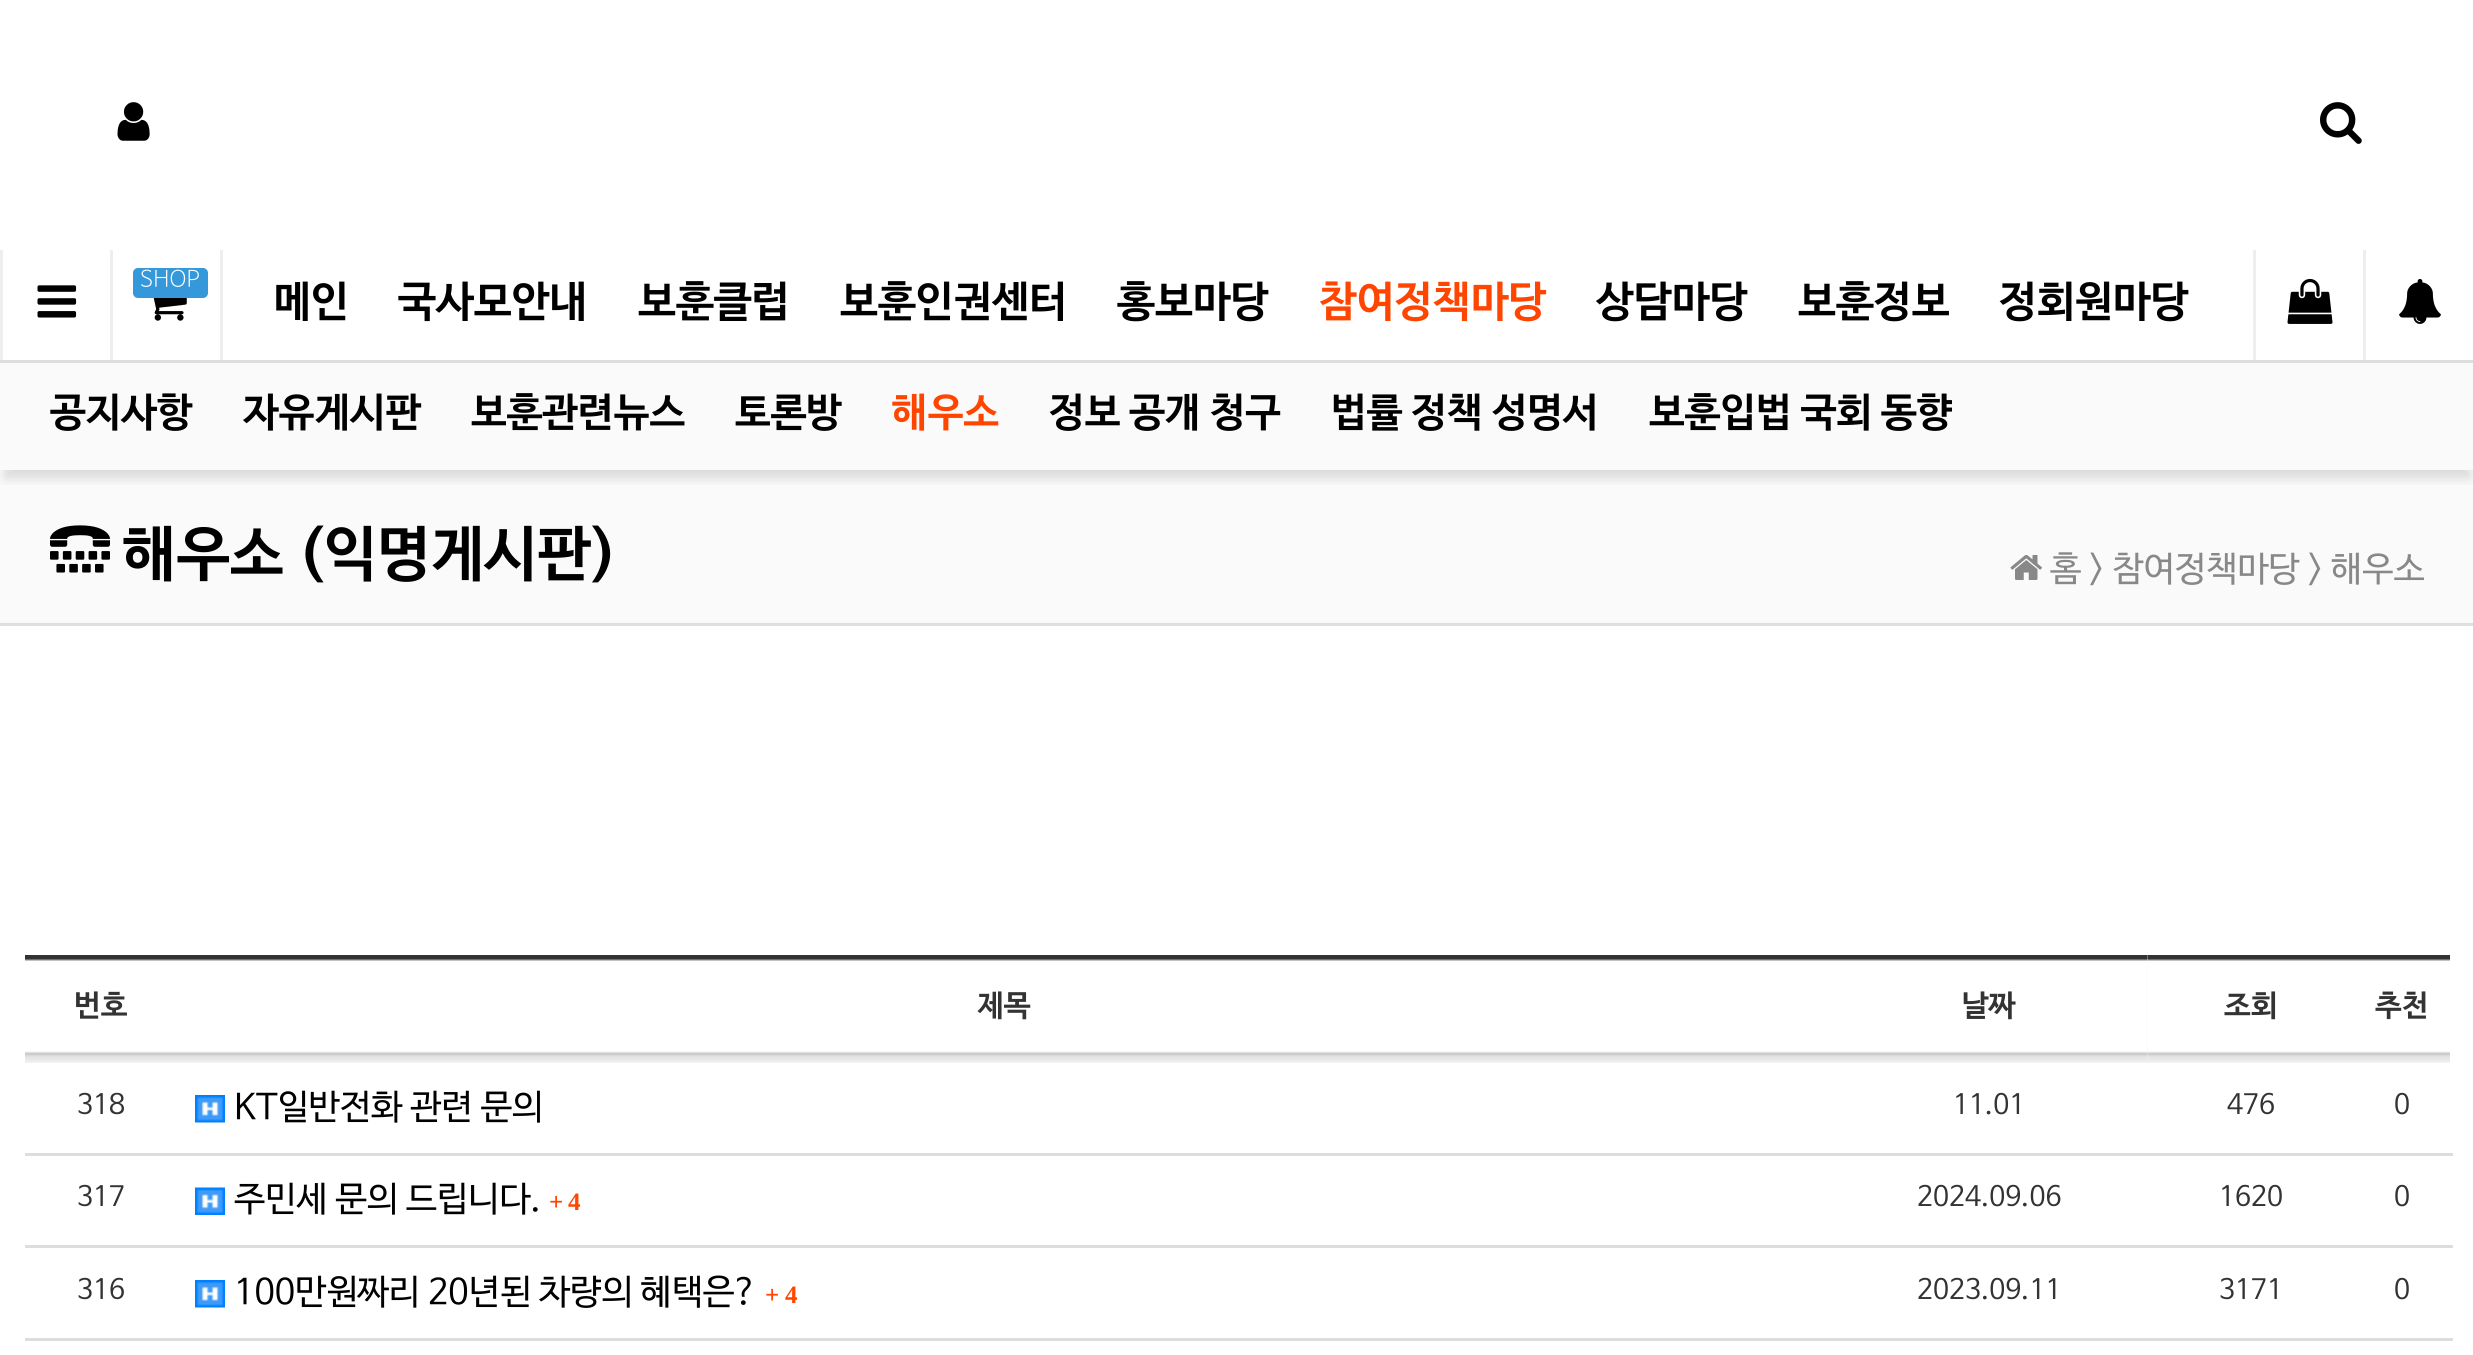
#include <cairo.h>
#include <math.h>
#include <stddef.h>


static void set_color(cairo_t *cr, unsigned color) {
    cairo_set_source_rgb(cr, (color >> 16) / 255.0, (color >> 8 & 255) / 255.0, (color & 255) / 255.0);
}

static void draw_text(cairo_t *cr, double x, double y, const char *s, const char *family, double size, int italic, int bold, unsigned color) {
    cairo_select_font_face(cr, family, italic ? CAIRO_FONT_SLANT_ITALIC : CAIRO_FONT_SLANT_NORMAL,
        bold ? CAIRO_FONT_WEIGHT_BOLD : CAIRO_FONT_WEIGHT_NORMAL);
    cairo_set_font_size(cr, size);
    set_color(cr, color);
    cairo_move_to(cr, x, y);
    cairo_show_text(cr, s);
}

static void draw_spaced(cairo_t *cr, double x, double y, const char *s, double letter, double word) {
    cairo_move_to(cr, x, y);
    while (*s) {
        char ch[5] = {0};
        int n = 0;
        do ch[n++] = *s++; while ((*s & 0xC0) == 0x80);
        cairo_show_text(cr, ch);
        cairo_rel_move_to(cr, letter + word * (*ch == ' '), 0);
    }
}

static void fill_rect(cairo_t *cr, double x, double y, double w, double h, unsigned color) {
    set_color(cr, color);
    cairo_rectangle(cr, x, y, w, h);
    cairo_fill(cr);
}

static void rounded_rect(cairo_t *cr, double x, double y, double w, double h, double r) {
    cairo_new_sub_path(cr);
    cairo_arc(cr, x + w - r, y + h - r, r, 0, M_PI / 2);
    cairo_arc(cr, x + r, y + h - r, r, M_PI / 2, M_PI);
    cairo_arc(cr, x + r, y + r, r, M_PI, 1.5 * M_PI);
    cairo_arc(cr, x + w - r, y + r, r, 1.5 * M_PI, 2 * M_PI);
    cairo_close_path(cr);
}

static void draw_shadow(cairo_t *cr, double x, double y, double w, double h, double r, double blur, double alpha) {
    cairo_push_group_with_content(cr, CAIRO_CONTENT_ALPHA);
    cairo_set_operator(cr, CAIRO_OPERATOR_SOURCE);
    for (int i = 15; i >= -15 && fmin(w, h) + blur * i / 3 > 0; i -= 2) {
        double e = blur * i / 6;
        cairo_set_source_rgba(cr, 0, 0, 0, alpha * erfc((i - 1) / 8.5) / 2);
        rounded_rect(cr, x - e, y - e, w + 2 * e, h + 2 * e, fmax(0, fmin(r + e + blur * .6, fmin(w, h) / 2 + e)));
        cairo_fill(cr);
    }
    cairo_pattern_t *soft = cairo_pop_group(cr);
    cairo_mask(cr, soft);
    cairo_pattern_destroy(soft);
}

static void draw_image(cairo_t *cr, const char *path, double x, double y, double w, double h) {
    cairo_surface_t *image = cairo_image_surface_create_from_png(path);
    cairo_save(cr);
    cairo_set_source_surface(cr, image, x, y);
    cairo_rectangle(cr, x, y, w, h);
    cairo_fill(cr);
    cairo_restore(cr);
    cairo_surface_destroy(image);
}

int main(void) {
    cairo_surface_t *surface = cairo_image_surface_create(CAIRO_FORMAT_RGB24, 2473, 1355);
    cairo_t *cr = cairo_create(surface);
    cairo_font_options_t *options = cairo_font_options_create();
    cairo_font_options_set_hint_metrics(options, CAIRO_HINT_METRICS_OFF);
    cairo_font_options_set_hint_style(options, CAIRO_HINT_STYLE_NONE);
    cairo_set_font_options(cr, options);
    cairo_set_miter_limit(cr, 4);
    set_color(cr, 0xFFFFFF);
    cairo_paint(cr);
    draw_image(cr, "assets/img1.png", 117, 102, 33, 39);
    draw_image(cr, "assets/img2.png", 2320, 102, 42, 42);
    fill_rect(cr, 0, 470, 2473, 153, 0xFAFAFA);
    cairo_save(cr);
    cairo_rectangle(cr, 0, 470, 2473, 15);
    cairo_clip(cr);
    set_color(cr, 0x191919);
    draw_shadow(cr, 5, 268, 2465, 210, 0, 6, 0.15);
    cairo_restore(cr);
    fill_rect(cr, 0, 250, 3, 113, 0xEEEEEE);
    draw_image(cr, "assets/img3.png", 37, 285, 40, 33);
    fill_rect(cr, 110, 250, 3, 113, 0xEEEEEE);
    set_color(cr, 0x3498DB);
    rounded_rect(cr, 133, 268, 75, 30, 5);
    cairo_fill(cr);
    draw_text(cr, 140, 286, "SHOP", "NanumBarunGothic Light", 22.5, 0, 0, 0xFFFFFF);
    draw_image(cr, "assets/img4.png", 153, 298, 34, 23);
    fill_rect(cr, 2253, 250, 3, 113, 0xEEEEEE);
    draw_image(cr, "assets/img5.png", 2287, 278, 46, 46);
    fill_rect(cr, 2363, 250, 3, 113, 0xEEEEEE);
    draw_image(cr, "assets/img6.png", 2399, 279, 42, 45);
    fill_rect(cr, 220, 250, 3, 113, 0xEEEEEE);
    draw_text(cr, 273, 315, "메인", "NanumBarunGothic", 42.5, 0, 1, 0x000000);
    draw_text(cr, 398, 315, "국사모안내", "NanumBarunGothic", 42.5, 0, 1, 0x000000);
    draw_text(cr, 638, 315, "보훈클럽", "NanumBarunGothic", 42.5, 0, 1, 0x000000);
    draw_text(cr, 840, 315, "보훈인권센터", "NanumBarunGothic", 42.5, 0, 1, 0x000000);
    draw_text(cr, 1117, 315, "홍보마당", "NanumBarunGothic", 42.5, 0, 1, 0x000000);
    draw_text(cr, 1319, 315, "참여정책마당", "NanumBarunGothic", 42.5, 0, 1, 0xFF4500);
    draw_text(cr, 1596, 315, "상담마당", "NanumBarunGothic", 42.5, 0, 1, 0x000000);
    draw_text(cr, 1798, 315, "보훈정보", "NanumBarunGothic", 42.5, 0, 1, 0x000000);
    draw_text(cr, 1999, 315, "정회원마당", "NanumBarunGothic", 42.5, 0, 1, 0x000000);
    fill_rect(cr, 0, 363, 2473, 107, 0xFAFAFA);
    fill_rect(cr, 0, 360, 2473, 3, 0xDDDDDD);
    draw_text(cr, 50, 425, "공지사항", "NanumBarunGothic", 40, 0, 1, 0x000000);
    draw_text(cr, 243, 425, "자유게시판", "NanumBarunGothic", 40, 0, 1, 0x000000);
    draw_text(cr, 471, 425, "보훈관련뉴스", "NanumBarunGothic", 40, 0, 1, 0x000000);
    draw_text(cr, 735, 425, "토론방", "NanumBarunGothic", 40, 0, 1, 0x000000);
    draw_text(cr, 892, 425, "해우소", "NanumBarunGothic", 40, 0, 1, 0xFF4500);
    draw_text(cr, 1049, 425, "정보 공개 청구", "NanumBarunGothic", 40, 0, 1, 0x000000);
    draw_text(cr, 1331, 425, "법률 정책 성명서", "NanumBarunGothic", 40, 0, 1, 0x000000);
    draw_text(cr, 1649, 425, "보훈입법 국회 동향", "NanumBarunGothic", 40, 0, 1, 0x000000);
    fill_rect(cr, 0, 623, 2473, 3, 0xDFDFDF);
    draw_image(cr, "assets/img7.png", 50, 525, 60, 48);
    draw_text(cr, 123, 573, "해우소 (익명게시판)", "NanumBarunGothic", 60, 0, 1, 0x000000);
    draw_image(cr, "assets/img8.png", 2010, 555, 32, 25);
    draw_text(cr, 2050, 580, "홈 > 참여정책마당 > 해우소", "NanumBarunGothic", 35, 0, 0, 0x888888);
    fill_rect(cr, 25, 955, 2425, 108, 0xF3F3F3);
    draw_image(cr, "assets/img9.png", 25, 955, 150, 107);
    draw_text(cr, 74, 1015, "번호", "NanumBarunGothic", 30, 0, 1, 0x333333);
    draw_image(cr, "assets/img10.png", 175, 955, 1655, 107);
    draw_text(cr, 977, 1015, "제목", "NanumBarunGothic", 30, 0, 1, 0x333333);
    draw_image(cr, "assets/img11.png", 1830, 955, 318, 107);
    draw_text(cr, 1962, 1015, "날짜", "NanumBarunGothic", 30, 0, 1, 0x333333);
    draw_image(cr, "assets/img12.png", 2147, 955, 208, 107);
    draw_text(cr, 2224, 1015, "조회", "NanumBarunGothic", 30, 0, 1, 0x333333);
    draw_image(cr, "assets/img13.png", 2355, 955, 95, 107);
    draw_text(cr, 2375, 1015, "추천", "NanumBarunGothic", 30, 0, 1, 0x333333);
    draw_text(cr, 77, 1113, "318", "NanumBarunGothic", 27.5, 0, 0, 0x333333);
    draw_image(cr, "assets/img14.png", 195, 1095, 30, 28);
    draw_text(cr, 234, 1118, "KT일반전화 관련 문의", "NanumBarunGothic", 35, 0, 0, 0x000000);
    draw_text(cr, 1953, 1113, "11.01", "NanumBarunGothic", 27.5, 0, 0, 0x333333);
    draw_text(cr, 2227, 1113, "476", "NanumBarunGothic", 27.5, 0, 0, 0x333333);
    draw_text(cr, 2394, 1113, "0", "NanumBarunGothic", 27.5, 0, 0, 0x333333);
    draw_text(cr, 77, 1205, "317", "NanumBarunGothic", 27.5, 0, 0, 0x333333);
    draw_image(cr, "assets/img15.png", 195, 1187, 30, 28);
    draw_text(cr, 234, 1210, "주민세 문의 드립니다.", "NanumBarunGothic", 35, 0, 0, 0x000000);
    cairo_select_font_face(cr, "Liberation Serif", CAIRO_FONT_SLANT_NORMAL, CAIRO_FONT_WEIGHT_BOLD);
    cairo_set_font_size(cr, 25);
    set_color(cr, 0xFF4500);
    draw_spaced(cr, 549, 1210, "+", -2, 0);
    draw_spaced(cr, 568, 1210, "4", -2, 0);
    draw_text(cr, 1917, 1205, "2024.09.06", "NanumBarunGothic", 27.5, 0, 0, 0x333333);
    draw_text(cr, 2219, 1205, "1620", "NanumBarunGothic", 27.5, 0, 0, 0x333333);
    fill_rect(cr, 25, 1153, 2428, 3, 0xDDDDDD);
    draw_text(cr, 2394, 1205, "0", "NanumBarunGothic", 27.5, 0, 0, 0x333333);
    draw_text(cr, 77, 1298, "316", "NanumBarunGothic", 27.5, 0, 0, 0x333333);
    draw_image(cr, "assets/img14.png", 195, 1280, 30, 28);
    draw_text(cr, 234, 1303, "100만원짜리 20년된 차량의 혜택은?", "NanumBarunGothic", 35, 0, 0, 0x000000);
    cairo_select_font_face(cr, "Liberation Serif", CAIRO_FONT_SLANT_NORMAL, CAIRO_FONT_WEIGHT_BOLD);
    cairo_set_font_size(cr, 25);
    set_color(cr, 0xFF4500);
    draw_spaced(cr, 765, 1303, "+", -2, 0);
    draw_spaced(cr, 785, 1303, "4", -2, 0);
    draw_text(cr, 1917, 1298, "2023.09.11", "NanumBarunGothic", 27.5, 0, 0, 0x333333);
    draw_text(cr, 2219, 1298, "3171", "NanumBarunGothic", 27.5, 0, 0, 0x333333);
    fill_rect(cr, 25, 1245, 2428, 3, 0xDDDDDD);
    draw_text(cr, 2394, 1298, "0", "NanumBarunGothic", 27.5, 0, 0, 0x333333);
    fill_rect(cr, 25, 1338, 2428, 3, 0xDDDDDD);
    cairo_surface_write_to_png(surface, "output.png");
    cairo_font_options_destroy(options);
    cairo_destroy(cr);
    cairo_surface_destroy(surface);
    return 0;
}
